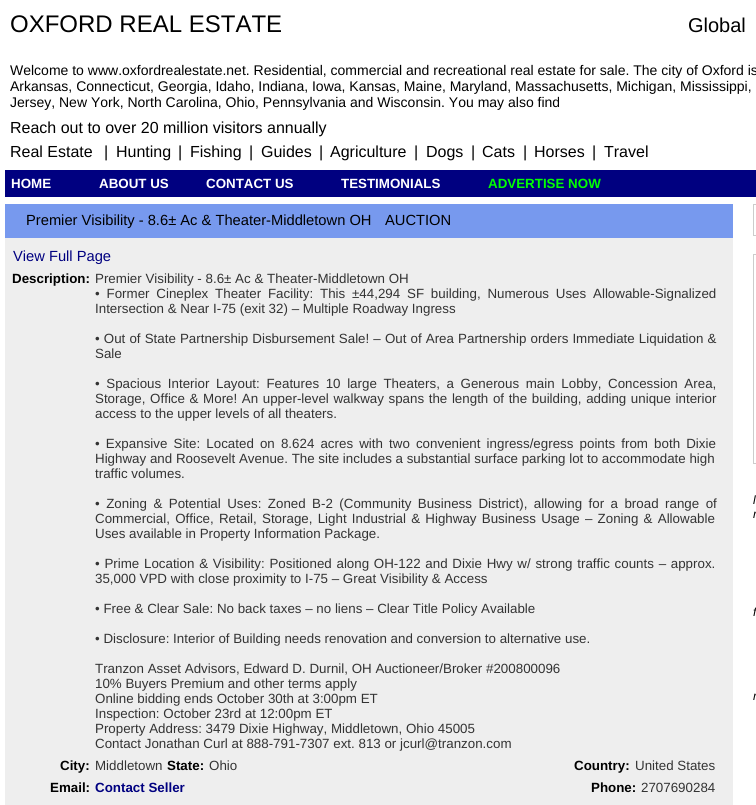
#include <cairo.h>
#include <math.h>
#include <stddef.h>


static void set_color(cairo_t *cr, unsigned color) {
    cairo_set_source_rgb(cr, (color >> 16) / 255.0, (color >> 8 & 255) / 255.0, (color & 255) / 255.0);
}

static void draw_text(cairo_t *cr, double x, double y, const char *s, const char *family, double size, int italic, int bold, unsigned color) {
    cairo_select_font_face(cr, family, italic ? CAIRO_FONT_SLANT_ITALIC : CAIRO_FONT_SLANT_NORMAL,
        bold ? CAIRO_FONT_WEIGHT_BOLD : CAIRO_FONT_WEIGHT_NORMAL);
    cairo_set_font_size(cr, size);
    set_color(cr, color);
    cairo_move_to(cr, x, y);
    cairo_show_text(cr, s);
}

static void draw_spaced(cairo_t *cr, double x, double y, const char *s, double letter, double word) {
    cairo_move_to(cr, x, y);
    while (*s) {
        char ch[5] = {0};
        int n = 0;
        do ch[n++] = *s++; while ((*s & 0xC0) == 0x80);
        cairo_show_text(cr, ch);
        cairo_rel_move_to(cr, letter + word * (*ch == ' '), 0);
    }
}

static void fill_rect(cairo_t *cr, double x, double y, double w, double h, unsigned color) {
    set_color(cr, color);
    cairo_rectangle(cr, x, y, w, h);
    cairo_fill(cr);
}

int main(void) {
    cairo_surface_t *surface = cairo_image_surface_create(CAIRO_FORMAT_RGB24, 756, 805);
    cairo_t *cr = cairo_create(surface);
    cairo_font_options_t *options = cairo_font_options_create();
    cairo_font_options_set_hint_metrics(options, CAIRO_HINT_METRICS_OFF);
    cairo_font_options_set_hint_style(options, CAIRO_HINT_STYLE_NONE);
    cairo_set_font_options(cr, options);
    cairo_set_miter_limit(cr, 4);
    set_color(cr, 0xFFFFFF);
    cairo_paint(cr);
    draw_text(cr, 10, 32, "OXFORD REAL ESTATE", "Liberation Sans", 24, 0, 0, 0x000000);
    draw_text(cr, 688, 32, "Global", "Liberation Sans", 20, 0, 0, 0x000000);
    draw_text(cr, 10, 75, "Welcome to www.oxfordrealestate.net. Residential, commercial and recreational real estate for sale. The city of Oxford is", "Liberation Sans", 14, 0, 0, 0x000000);
    draw_text(cr, 10, 91, "Arkansas, Connecticut, Georgia, Idaho, Indiana, Iowa, Kansas, Maine, Maryland, Massachusetts, Michigan, Mississippi,", "Liberation Sans", 14, 0, 0, 0x000000);
    draw_text(cr, 10, 107, "Jersey, New York, North Carolina, Ohio, Pennsylvania and Wisconsin. You may also find", "Liberation Sans", 14, 0, 0, 0x000000);
    draw_text(cr, 10, 133, "Reach out to over 20 million visitors annually", "Liberation Sans", 16, 0, 0, 0x000000);
    draw_text(cr, 10, 157, "Real Estate", "Liberation Sans", 16, 0, 0, 0x000000);
    draw_text(cr, 104, 157, "|", "Liberation Sans", 16, 0, 0, 0x000000);
    draw_text(cr, 116, 157, "Hunting", "Liberation Sans", 16, 0, 0, 0x000000);
    draw_text(cr, 178, 157, "|", "Liberation Sans", 16, 0, 0, 0x000000);
    draw_text(cr, 190, 157, "Fishing", "Liberation Sans", 16, 0, 0, 0x000000);
    draw_text(cr, 249, 157, "|", "Liberation Sans", 16, 0, 0, 0x000000);
    draw_text(cr, 261, 157, "Guides", "Liberation Sans", 16, 0, 0, 0x000000);
    draw_text(cr, 319, 157, "|", "Liberation Sans", 16, 0, 0, 0x000000);
    draw_text(cr, 330, 157, "Agriculture", "Liberation Sans", 16, 0, 0, 0x000000);
    draw_text(cr, 414, 157, "|", "Liberation Sans", 16, 0, 0, 0x000000);
    draw_text(cr, 426, 157, "Dogs", "Liberation Sans", 16, 0, 0, 0x000000);
    draw_text(cr, 471, 157, "|", "Liberation Sans", 16, 0, 0, 0x000000);
    draw_text(cr, 482, 157, "Cats", "Liberation Sans", 16, 0, 0, 0x000000);
    draw_text(cr, 523, 157, "|", "Liberation Sans", 16, 0, 0, 0x000000);
    draw_text(cr, 534, 157, "Horses", "Liberation Sans", 16, 0, 0, 0x000000);
    draw_text(cr, 592, 157, "|", "Liberation Sans", 16, 0, 0, 0x000000);
    draw_text(cr, 604, 157, "Travel", "Liberation Sans", 16, 0, 0, 0x000000);
    fill_rect(cr, 5, 170, 751, 27, 0x000080);
    draw_text(cr, 11, 188, "HOME", "Liberation Sans", 13.35, 0, 1, 0xFFFFFF);
    draw_text(cr, 99, 188, "ABOUT US", "Liberation Sans", 13.35, 0, 1, 0xFFFFFF);
    draw_text(cr, 206, 188, "CONTACT US", "Liberation Sans", 13.35, 0, 1, 0xFFFFFF);
    draw_text(cr, 341, 188, "TESTIMONIALS", "Liberation Sans", 13.35, 0, 1, 0xFFFFFF);
    draw_text(cr, 488, 188, "ADVERTISE NOW", "Liberation Sans", 13.35, 0, 1, 0x00FF00);
    fill_rect(cr, 5, 204, 728, 34, 0x7799EE);
    draw_text(cr, 26, 225, "Premier Visibility - 8.6± Ac & Theater-Middletown OH", "Liberation Sans", 14.7, 0, 0, 0x000000);
    draw_text(cr, 385, 225, "AUCTION", "Liberation Sans", 14.7, 0, 0, 0x000000);
    fill_rect(cr, 5, 238, 728, 567, 0xEEEEEE);
    draw_text(cr, 13, 261, "View Full Page", "Liberation Sans", 14.7, 0, 0, 0x000080);
    draw_text(cr, 12, 283, "Description:", "Liberation Sans", 13.35, 0, 1, 0x000000);
    draw_text(cr, 95, 283, "Premier Visibility - 8.6± Ac & Theater-Middletown OH", "Liberation Sans", 13.35, 0, 0, 0x333333);
    draw_spaced(cr, 95, 298, "• Former Cineplex Theater Facility: This ±44,294 SF building, Numerous Uses Allowable-Signalized", 0, 3.1);
    draw_text(cr, 95, 313, "Intersection & Near I-75 (exit 32) – Multiple Roadway Ingress", "Liberation Sans", 13.35, 0, 0, 0x333333);
    draw_spaced(cr, 95, 343, "• Out of State Partnership Disbursement Sale! – Out of Area Partnership orders Immediate Liquidation &", 0, 0.4);
    draw_text(cr, 95, 358, "Sale", "Liberation Sans", 13.35, 0, 0, 0x333333);
    draw_spaced(cr, 95, 388, "• Spacious Interior Layout: Features 10 large Theaters, a Generous main Lobby, Concession Area,", 0, 2.9);
    draw_spaced(cr, 95, 403, "Storage, Office & More! An upper-level walkway spans the length of the building, adding unique interior", 0, 0.9);
    draw_text(cr, 95, 418, "access to the upper levels of all theaters.", "Liberation Sans", 13.35, 0, 0, 0x333333);
    draw_spaced(cr, 95, 448, "• Expansive Site: Located on 8.624 acres with two convenient ingress/egress points from both Dixie", 0, 2.4);
    draw_text(cr, 95, 463, "Highway and Roosevelt Avenue. The site includes a substantial surface parking lot to accommodate high", "Liberation Sans", 13.35, 0, 0, 0x333333);
    draw_text(cr, 95, 478, "traffic volumes.", "Liberation Sans", 13.35, 0, 0, 0x333333);
    draw_spaced(cr, 95, 508, "• Zoning & Potential Uses: Zoned B-2 (Community Business District), allowing for a broad range of", 0, 2.75);
    draw_spaced(cr, 95, 523, "Commercial, Office, Retail, Storage, Light Industrial & Highway Business Usage – Zoning & Allowable", 0, 1.5);
    draw_text(cr, 95, 538, "Uses available in Property Information Package.", "Liberation Sans", 13.35, 0, 0, 0x333333);
    draw_spaced(cr, 95, 568, "• Prime Location & Visibility: Positioned along OH-122 and Dixie Hwy w/ strong traffic counts – approx.", 0, 1);
    draw_text(cr, 95, 583, "35,000 VPD with close proximity to I-75 – Great Visibility & Access", "Liberation Sans", 13.35, 0, 0, 0x333333);
    draw_text(cr, 95, 613, "• Free & Clear Sale: No back taxes – no liens – Clear Title Policy Available", "Liberation Sans", 13.35, 0, 0, 0x333333);
    draw_text(cr, 95, 643, "• Disclosure: Interior of Building needs renovation and conversion to alternative use.", "Liberation Sans", 13.35, 0, 0, 0x333333);
    draw_text(cr, 95, 673, "Tranzon Asset Advisors, Edward D. Durnil, OH Auctioneer/Broker #200800096", "Liberation Sans", 13.35, 0, 0, 0x333333);
    draw_text(cr, 95, 688, "10% Buyers Premium and other terms apply", "Liberation Sans", 13.35, 0, 0, 0x333333);
    draw_text(cr, 95, 703, "Online bidding ends October 30th at 3:00pm ET", "Liberation Sans", 13.35, 0, 0, 0x333333);
    draw_text(cr, 95, 718, "Inspection: October 23rd at 12:00pm ET", "Liberation Sans", 13.35, 0, 0, 0x333333);
    draw_text(cr, 95, 733, "Property Address: 3479 Dixie Highway, Middletown, Ohio 45005", "Liberation Sans", 13.35, 0, 0, 0x333333);
    draw_text(cr, 95, 748, "Contact Jonathan Curl at 888-791-7307 ext. 813 or jcurl@tranzon.com", "Liberation Sans", 13.35, 0, 0, 0x333333);
    draw_text(cr, 60, 770, "City:", "Liberation Sans", 13.35, 0, 1, 0x000000);
    draw_text(cr, 95, 770, "Middletown", "Liberation Sans", 13.35, 0, 0, 0x333333);
    draw_text(cr, 167, 770, "State:", "Liberation Sans", 13.35, 0, 1, 0x000000);
    draw_text(cr, 209, 770, "Ohio", "Liberation Sans", 13.35, 0, 0, 0x333333);
    draw_text(cr, 574, 770, "Country:", "Liberation Sans", 13.35, 0, 1, 0x000000);
    draw_text(cr, 635, 770, "United States", "Liberation Sans", 13.35, 0, 0, 0x333333);
    draw_text(cr, 50, 792, "Email:", "Liberation Sans", 13.35, 0, 1, 0x000000);
    draw_text(cr, 95, 792, "Contact Seller", "Liberation Sans", 13.35, 0, 1, 0x000080);
    draw_text(cr, 591, 792, "Phone:", "Liberation Sans", 13.35, 0, 1, 0x000000);
    draw_text(cr, 641, 792, "2707690284", "Liberation Sans", 13.35, 0, 0, 0x333333);
    cairo_rectangle(cr, 753.5, 204.5, 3, 31);
    set_color(cr, 0xCCCCCC);
    cairo_set_line_width(cr, 1);
    cairo_stroke(cr);
    cairo_rectangle(cr, 753.5, 254.5, 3, 209);
    cairo_stroke(cr);
    draw_text(cr, 753, 504, "l", "Liberation Sans", 12, 1, 0, 0x000000);
    draw_text(cr, 753, 518, "r", "Liberation Sans", 12, 1, 0, 0x000000);
    draw_text(cr, 753, 616, "f", "Liberation Sans", 12, 1, 0, 0x000000);
    draw_text(cr, 753, 700, "r", "Liberation Sans", 12, 1, 0, 0x000000);
    cairo_surface_write_to_png(surface, "output.png");
    cairo_font_options_destroy(options);
    cairo_destroy(cr);
    cairo_surface_destroy(surface);
    return 0;
}
